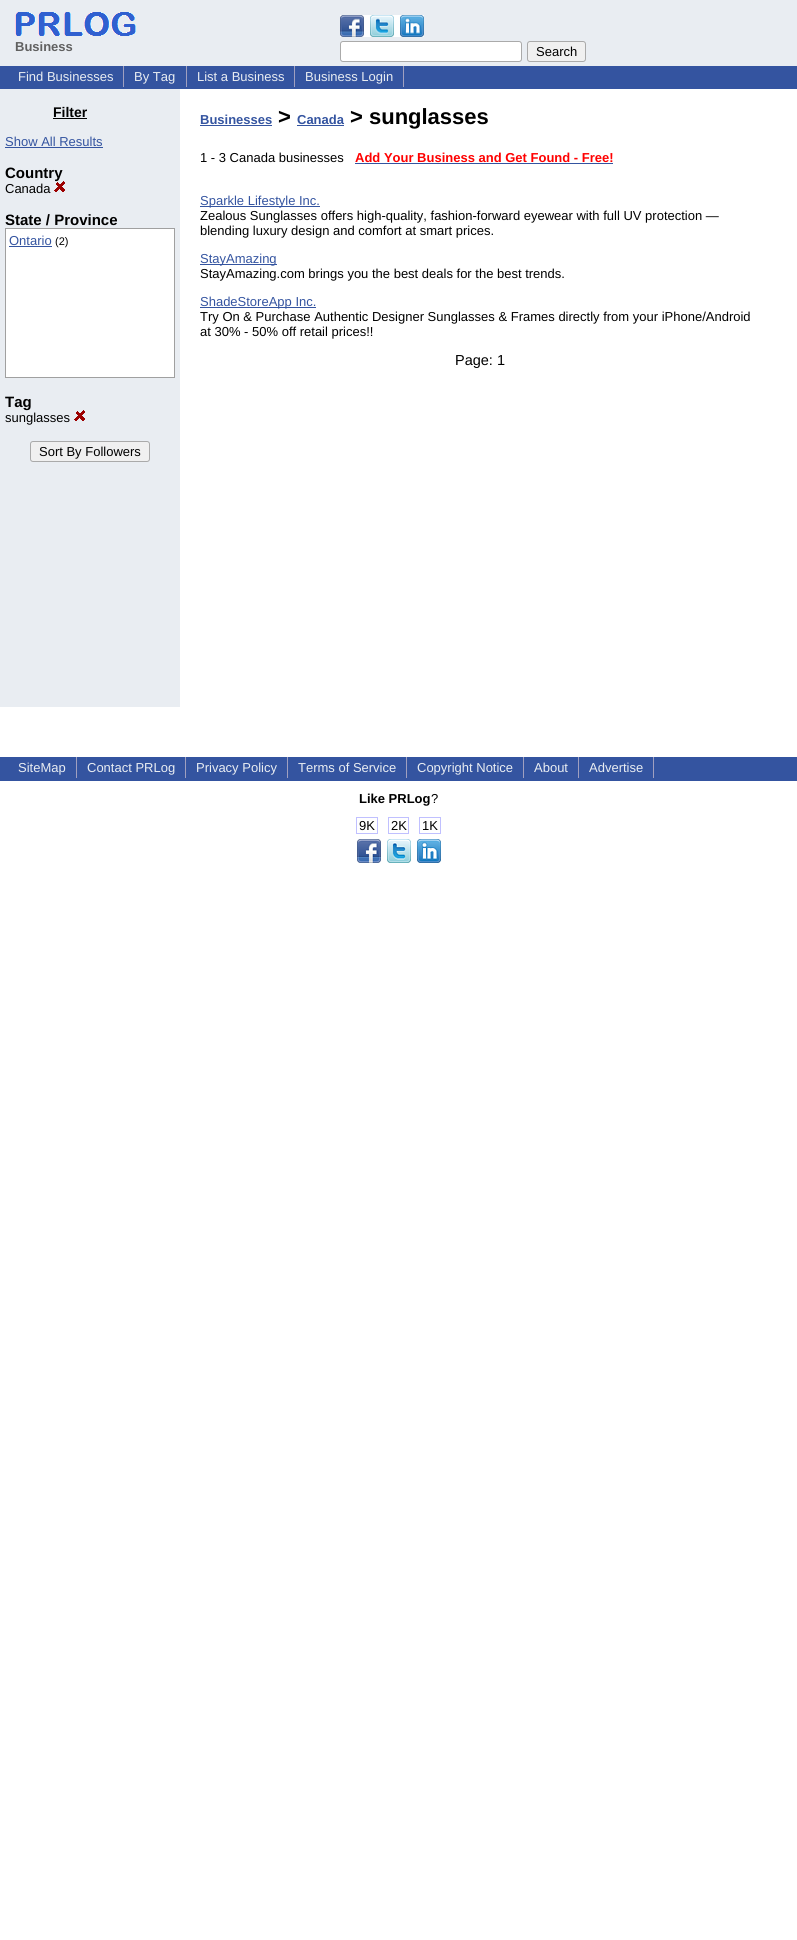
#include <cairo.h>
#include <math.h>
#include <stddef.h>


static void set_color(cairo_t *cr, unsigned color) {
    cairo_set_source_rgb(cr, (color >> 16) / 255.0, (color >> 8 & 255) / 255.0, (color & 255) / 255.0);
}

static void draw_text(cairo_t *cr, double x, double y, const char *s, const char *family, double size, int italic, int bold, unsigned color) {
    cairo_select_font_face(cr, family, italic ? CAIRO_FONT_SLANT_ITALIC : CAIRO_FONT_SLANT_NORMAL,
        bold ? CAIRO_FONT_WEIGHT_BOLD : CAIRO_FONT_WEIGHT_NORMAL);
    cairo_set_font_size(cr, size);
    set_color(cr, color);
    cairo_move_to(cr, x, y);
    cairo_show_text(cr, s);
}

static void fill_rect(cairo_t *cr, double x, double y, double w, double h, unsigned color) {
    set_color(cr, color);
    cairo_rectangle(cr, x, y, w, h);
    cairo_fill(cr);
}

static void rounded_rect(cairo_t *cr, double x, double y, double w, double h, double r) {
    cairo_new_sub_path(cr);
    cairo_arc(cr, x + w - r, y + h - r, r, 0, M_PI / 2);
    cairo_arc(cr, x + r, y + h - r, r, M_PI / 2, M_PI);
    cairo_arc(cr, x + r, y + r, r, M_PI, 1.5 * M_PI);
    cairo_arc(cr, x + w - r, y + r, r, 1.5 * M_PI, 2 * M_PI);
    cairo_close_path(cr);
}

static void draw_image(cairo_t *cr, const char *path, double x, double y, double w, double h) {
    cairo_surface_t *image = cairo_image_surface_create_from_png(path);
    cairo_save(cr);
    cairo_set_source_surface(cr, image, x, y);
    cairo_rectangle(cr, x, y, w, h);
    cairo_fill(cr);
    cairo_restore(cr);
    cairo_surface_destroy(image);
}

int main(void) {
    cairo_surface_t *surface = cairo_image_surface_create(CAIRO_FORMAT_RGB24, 797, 1940);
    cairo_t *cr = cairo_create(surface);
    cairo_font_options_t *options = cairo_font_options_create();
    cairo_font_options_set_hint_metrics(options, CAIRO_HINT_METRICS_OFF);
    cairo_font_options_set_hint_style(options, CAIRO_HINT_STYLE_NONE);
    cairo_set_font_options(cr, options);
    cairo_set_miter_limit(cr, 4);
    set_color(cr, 0xFFFFFF);
    cairo_paint(cr);
    fill_rect(cr, 0, 0, 797, 66, 0xE9EDF2);
    draw_image(cr, "assets/img1.png", 15, 12, 121, 24);
    draw_text(cr, 15, 51, "Business", "Liberation Sans", 13, 0, 1, 0x606060);
    draw_image(cr, "assets/img2.png", 340, 15, 84, 22);
    set_color(cr, 0xFFFFFF);
    rounded_rect(cr, 340.5, 41.5, 181, 20, 2.5);
    cairo_fill_preserve(cr);
    set_color(cr, 0xAAAAAA);
    cairo_set_line_width(cr, 1);
    cairo_stroke(cr);
    set_color(cr, 0xF0F0F0);
    rounded_rect(cr, 527.5, 41.5, 58, 20, 2.5);
    cairo_fill_preserve(cr);
    set_color(cr, 0xAAAAAA);
    cairo_stroke(cr);
    draw_text(cr, 536, 56, "Search", "Liberation Sans", 13, 0, 0, 0x000000);
    fill_rect(cr, 0, 66, 797, 23, 0x3454A0);
    fill_rect(cr, 123, 66, 1, 21, 0xA0A0C0);
    draw_text(cr, 18, 81, "Find Businesses", "Liberation Sans", 13, 0, 0, 0xE9EDF2);
    fill_rect(cr, 186, 66, 1, 21, 0xA0A0C0);
    draw_text(cr, 134, 81, "By Tag", "Liberation Sans", 13, 0, 0, 0xE9EDF2);
    fill_rect(cr, 294, 66, 1, 21, 0xA0A0C0);
    draw_text(cr, 197, 81, "List a Business", "Liberation Sans", 13, 0, 0, 0xE9EDF2);
    fill_rect(cr, 403, 66, 1, 21, 0xA0A0C0);
    draw_text(cr, 305, 81, "Business Login", "Liberation Sans", 13, 0, 0, 0xE9EDF2);
    fill_rect(cr, 0, 89, 180, 618, 0xE9EDF2);
    draw_text(cr, 53, 117, "Filter", "Liberation Sans", 14, 0, 1, 0x000000);
    fill_rect(cr, 53, 118, 34, 1, 0x000000);
    draw_text(cr, 5, 146, "Show All Results", "Liberation Sans", 13, 0, 0, 0x3454A0);
    fill_rect(cr, 5, 147, 98, 1, 0x3454A0);
    draw_text(cr, 5, 178, "Country", "Liberation Sans", 15, 0, 1, 0x000000);
    draw_text(cr, 5, 193, "Canada", "Liberation Sans", 13, 0, 0, 0x000000);
    draw_image(cr, "assets/img3.png", 54, 181, 11, 11);
    draw_text(cr, 5, 225, "State / Province", "Liberation Sans", 15, 0, 1, 0x000000);
    set_color(cr, 0xFFFFFF);
    cairo_rectangle(cr, 5.5, 228.5, 169, 149);
    cairo_fill_preserve(cr);
    set_color(cr, 0xA0A0A0);
    cairo_stroke(cr);
    draw_text(cr, 9, 245, "Ontario", "Liberation Sans", 13, 0, 0, 0x3454A0);
    fill_rect(cr, 9, 246, 43, 1, 0x3454A0);
    draw_text(cr, 55, 245, "(2)", "Liberation Sans", 11, 0, 0, 0x000000);
    draw_text(cr, 5, 407, "Tag", "Liberation Sans", 15, 0, 1, 0x000000);
    draw_text(cr, 5, 422, "sunglasses", "Liberation Sans", 13, 0, 0, 0x000000);
    draw_image(cr, "assets/img4.png", 74, 410, 11, 11);
    set_color(cr, 0xF0F0F0);
    rounded_rect(cr, 30.5, 441.5, 119, 20, 2.5);
    cairo_fill_preserve(cr);
    set_color(cr, 0xAAAAAA);
    cairo_stroke(cr);
    draw_text(cr, 39, 456, "Sort By Followers", "Liberation Sans", 13, 0, 0, 0x000000);
    draw_text(cr, 200, 124, "Businesses", "Liberation Sans", 13, 0, 1, 0x3454A0);
    fill_rect(cr, 200, 125, 72, 1, 0x3454A0);
    draw_text(cr, 278, 124, ">", "Liberation Sans", 22, 0, 1, 0x000000);
    draw_text(cr, 297, 124, "Canada", "Liberation Sans", 13, 0, 1, 0x3454A0);
    fill_rect(cr, 297, 125, 47, 1, 0x3454A0);
    draw_text(cr, 350, 124, "> sunglasses", "Liberation Sans", 22, 0, 1, 0x000000);
    draw_text(cr, 200, 162, "1 - 3 Canada businesses", "Liberation Sans", 13, 0, 0, 0x000000);
    draw_text(cr, 355, 162, "Add Your Business and Get Found - Free!", "Liberation Sans", 13, 0, 1, 0xFF0000);
    fill_rect(cr, 355, 163, 258, 1, 0x3454A0);
    fill_rect(cr, 200, 206, 120, 1, 0x3454A0);
    draw_text(cr, 200, 205, "Sparkle Lifestyle Inc.", "Liberation Sans", 13, 0, 0, 0x3454A0);
    draw_text(cr, 200, 220, "Zealous Sunglasses offers high-quality, fashion-forward eyewear with full UV protection —", "Liberation Sans", 13, 0, 0, 0x000000);
    draw_text(cr, 200, 235, "blending luxury design and comfort at smart prices.", "Liberation Sans", 13, 0, 0, 0x000000);
    fill_rect(cr, 200, 264, 77, 1, 0x3454A0);
    draw_text(cr, 200, 263, "StayAmazing", "Liberation Sans", 13, 0, 0, 0x3454A0);
    draw_text(cr, 200, 278, "StayAmazing.com brings you the best deals for the best trends.", "Liberation Sans", 13, 0, 0, 0x000000);
    fill_rect(cr, 200, 307, 116, 1, 0x3454A0);
    draw_text(cr, 200, 306, "ShadeStoreApp Inc.", "Liberation Sans", 13, 0, 0, 0x3454A0);
    draw_text(cr, 200, 321, "Try On & Purchase Authentic Designer Sunglasses & Frames directly from your iPhone/Android", "Liberation Sans", 13, 0, 0, 0x000000);
    draw_text(cr, 200, 336, "at 30% - 50% off retail prices!!", "Liberation Sans", 13, 0, 0, 0x000000);
    draw_text(cr, 455, 365, "Page: 1", "Liberation Sans", 14.5, 0, 0, 0x000000);
    fill_rect(cr, 0, 757, 797, 24, 0x3454A0);
    fill_rect(cr, 76, 757, 1, 21, 0xA0A0C0);
    draw_text(cr, 18, 772, "SiteMap", "Liberation Sans", 13, 0, 0, 0xE9EDF2);
    fill_rect(cr, 185, 757, 1, 21, 0xA0A0C0);
    draw_text(cr, 87, 772, "Contact PRLog", "Liberation Sans", 13, 0, 0, 0xE9EDF2);
    fill_rect(cr, 287, 757, 1, 21, 0xA0A0C0);
    draw_text(cr, 196, 772, "Privacy Policy", "Liberation Sans", 13, 0, 0, 0xE9EDF2);
    fill_rect(cr, 406, 757, 1, 21, 0xA0A0C0);
    draw_text(cr, 298, 772, "Terms of Service", "Liberation Sans", 13, 0, 0, 0xE9EDF2);
    fill_rect(cr, 523, 757, 1, 21, 0xA0A0C0);
    draw_text(cr, 417, 772, "Copyright Notice", "Liberation Sans", 13, 0, 0, 0xE9EDF2);
    fill_rect(cr, 578, 757, 1, 21, 0xA0A0C0);
    draw_text(cr, 534, 772, "About", "Liberation Sans", 13, 0, 0, 0xE9EDF2);
    fill_rect(cr, 653, 757, 1, 21, 0xA0A0C0);
    draw_text(cr, 589, 772, "Advertise", "Liberation Sans", 13, 0, 0, 0xE9EDF2);
    draw_text(cr, 359, 803, "Like PRLog", "Liberation Sans", 13, 0, 1, 0x000000);
    draw_text(cr, 431, 803, "?", "Liberation Sans", 13, 0, 0, 0x000000);
    cairo_rectangle(cr, 356.5, 817.5, 21, 16);
    set_color(cr, 0xC0C0FF);
    cairo_stroke(cr);
    draw_text(cr, 359, 830, "9K", "Liberation Sans", 13, 0, 0, 0x000000);
    cairo_rectangle(cr, 388.5, 817.5, 20, 16);
    set_color(cr, 0xC0C0FF);
    cairo_stroke(cr);
    draw_text(cr, 391, 830, "2K", "Liberation Sans", 13, 0, 0, 0x000000);
    cairo_rectangle(cr, 419.5, 817.5, 21, 16);
    set_color(cr, 0xC0C0FF);
    cairo_stroke(cr);
    draw_text(cr, 422, 830, "1K", "Liberation Sans", 13, 0, 0, 0x000000);
    draw_image(cr, "assets/img5.png", 357, 839, 84, 24);
    cairo_surface_write_to_png(surface, "output.png");
    cairo_font_options_destroy(options);
    cairo_destroy(cr);
    cairo_surface_destroy(surface);
    return 0;
}
